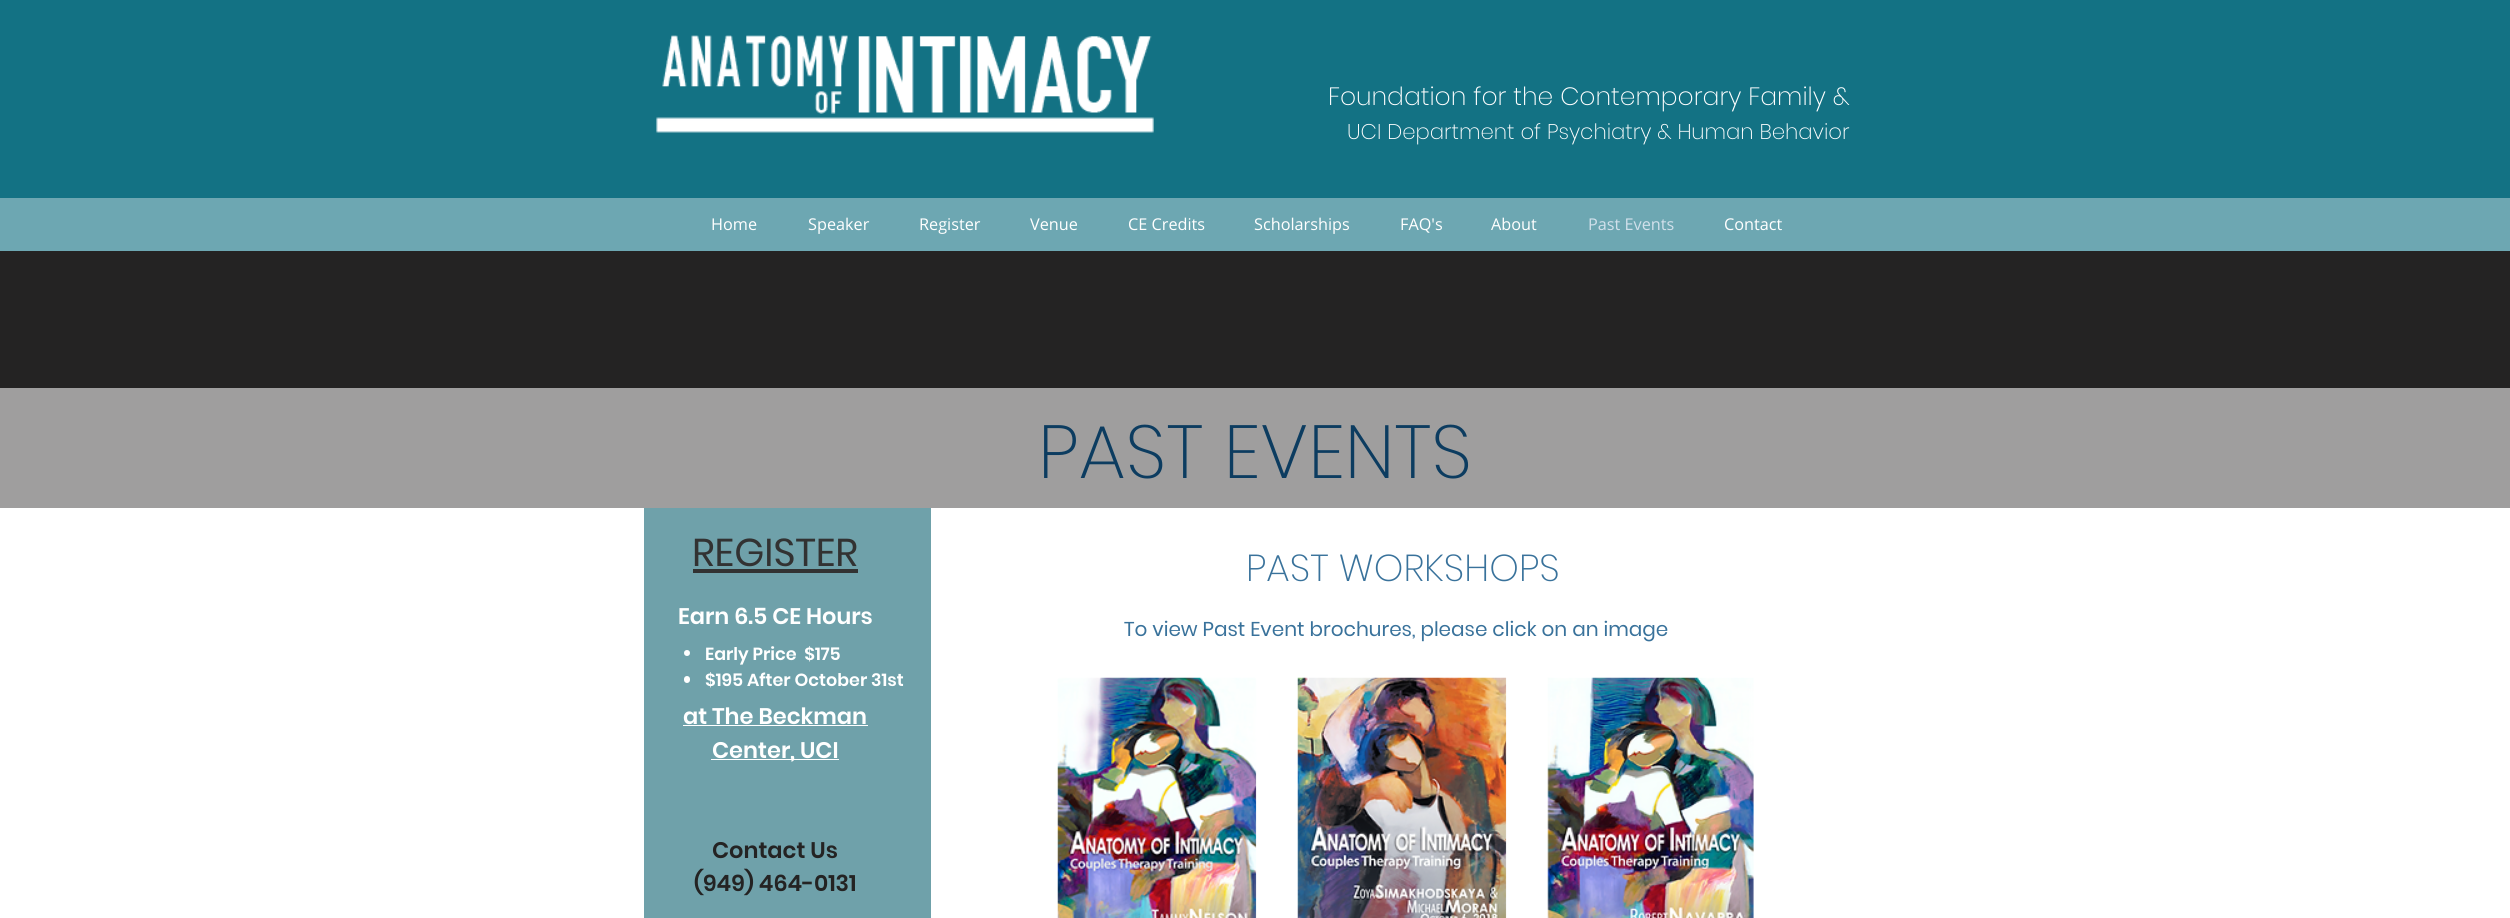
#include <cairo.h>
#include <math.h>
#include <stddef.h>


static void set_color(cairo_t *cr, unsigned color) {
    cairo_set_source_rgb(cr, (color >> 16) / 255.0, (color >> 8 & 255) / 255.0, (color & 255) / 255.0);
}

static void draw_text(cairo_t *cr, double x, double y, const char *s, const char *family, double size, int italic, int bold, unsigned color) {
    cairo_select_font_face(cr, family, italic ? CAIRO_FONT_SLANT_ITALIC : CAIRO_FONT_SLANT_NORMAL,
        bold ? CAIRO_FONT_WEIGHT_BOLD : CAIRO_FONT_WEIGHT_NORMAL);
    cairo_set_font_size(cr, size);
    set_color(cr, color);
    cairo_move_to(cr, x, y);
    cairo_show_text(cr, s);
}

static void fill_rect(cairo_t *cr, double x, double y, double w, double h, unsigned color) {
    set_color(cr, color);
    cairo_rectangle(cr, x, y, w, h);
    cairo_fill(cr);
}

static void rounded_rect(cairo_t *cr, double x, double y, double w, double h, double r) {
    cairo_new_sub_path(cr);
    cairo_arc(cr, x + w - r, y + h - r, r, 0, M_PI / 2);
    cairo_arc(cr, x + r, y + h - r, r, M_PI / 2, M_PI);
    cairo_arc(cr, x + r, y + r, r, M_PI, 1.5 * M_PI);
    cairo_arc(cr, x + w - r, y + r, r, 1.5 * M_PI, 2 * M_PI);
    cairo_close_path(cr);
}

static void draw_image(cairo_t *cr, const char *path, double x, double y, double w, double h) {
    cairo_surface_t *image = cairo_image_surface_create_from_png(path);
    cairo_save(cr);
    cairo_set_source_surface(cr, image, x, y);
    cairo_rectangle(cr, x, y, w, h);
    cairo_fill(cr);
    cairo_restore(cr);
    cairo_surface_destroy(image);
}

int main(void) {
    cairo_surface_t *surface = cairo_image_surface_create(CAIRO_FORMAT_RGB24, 2510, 918);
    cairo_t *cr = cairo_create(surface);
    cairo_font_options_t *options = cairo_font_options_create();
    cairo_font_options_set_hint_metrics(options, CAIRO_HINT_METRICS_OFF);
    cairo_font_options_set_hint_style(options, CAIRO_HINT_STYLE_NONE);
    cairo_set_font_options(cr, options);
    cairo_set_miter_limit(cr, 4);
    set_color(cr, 0xFFFFFF);
    cairo_paint(cr);
    fill_rect(cr, 0, 0, 2510, 198, 0x137284);
    draw_image(cr, "assets/img1.png", 656, 35, 498, 98);
    draw_text(cr, 1328, 105, "Foundation for the Contemporary Family &", "Poppins ExtraLight", 25, 0, 0, 0xFFFFFF);
    draw_text(cr, 1347, 139, "UCI Department of Psychiatry & Human Behavior", "Poppins ExtraLight", 21.25, 0, 0, 0xFFFFFF);
    fill_rect(cr, 0, 198, 2510, 53, 0x6DA7B2);
    draw_text(cr, 711, 230, "Home", "Open Sans", 16.25, 0, 0, 0xFFFFFF);
    draw_text(cr, 808, 230, "Speaker", "Open Sans", 16.25, 0, 0, 0xFFFFFF);
    draw_text(cr, 919, 230, "Register", "Open Sans", 16.25, 0, 0, 0xFFFFFF);
    draw_text(cr, 1030, 230, "Venue", "Open Sans", 16.25, 0, 0, 0xFFFFFF);
    draw_text(cr, 1128, 230, "CE Credits", "Open Sans", 16.25, 0, 0, 0xFFFFFF);
    draw_text(cr, 1254, 230, "Scholarships", "Open Sans", 16.25, 0, 0, 0xFFFFFF);
    draw_text(cr, 1400, 230, "FAQ's", "Open Sans", 16.25, 0, 0, 0xFFFFFF);
    draw_text(cr, 1491, 230, "About", "Open Sans", 16.25, 0, 0, 0xFFFFFF);
    draw_text(cr, 1588, 230, "Past Events", "Open Sans", 16.25, 0, 0, 0xD1E0EB);
    draw_text(cr, 1724, 230, "Contact", "Open Sans", 16.25, 0, 0, 0xFFFFFF);
    fill_rect(cr, 0, 251, 2510, 137, 0x242323);
    fill_rect(cr, 0, 388, 2510, 120, 0x9F9E9E);
    draw_text(cr, 1038, 478, "PAST EVENTS", "Poppins ExtraLight", 75, 0, 0, 0x0C3C60);
    fill_rect(cr, 644, 508, 287, 410, 0x6FA1AA);
    draw_text(cr, 692, 566, "REGISTER", "Poppins", 38.75, 0, 0, 0x323232);
    fill_rect(cr, 693, 569, 165, 4, 0x323232);
    draw_text(cr, 678, 624, "Earn 6.5 CE Hours", "Poppins SemiBold", 22.5, 0, 0, 0xFFFFFF);
    cairo_new_path(cr);
    cairo_arc(cr, 687, 653, 3, 0, 2 * M_PI);
    cairo_fill(cr);
    draw_text(cr, 705, 660, "Early Price  $175", "Poppins SemiBold", 17.5, 0, 0, 0xFFFFFF);
    rounded_rect(cr, 684, 676, 6, 7, 3);
    cairo_fill(cr);
    draw_text(cr, 705, 686, "$195 After October 31st", "Poppins SemiBold", 17.5, 0, 0, 0xFFFFFF);
    draw_text(cr, 683, 724, "at The Beckman", "Poppins SemiBold", 22.5, 0, 0, 0xFFFFFF);
    fill_rect(cr, 683, 725, 185, 1, 0xFFFFFF);
    fill_rect(cr, 711, 759, 128, 1, 0xFFFFFF);
    draw_text(cr, 712, 758, "Center, UCI", "Poppins SemiBold", 22.5, 0, 0, 0xFFFFFF);
    draw_text(cr, 712, 858, "Contact Us", "Poppins SemiBold", 22.5, 0, 0, 0x242323);
    draw_text(cr, 694, 891, "(949) 464-0131", "Poppins SemiBold", 22.5, 0, 0, 0x242323);
    draw_text(cr, 1246, 581, "PAST WORKSHOPS", "Poppins ExtraLight", 37.5, 0, 0, 0x39729B);
    draw_text(cr, 1124, 636, "To view Past Event brochures, please click on an image", "Poppins", 20, 0, 0, 0x39729B);
    draw_image(cr, "assets/img2.png", 1057, 677, 200, 241);
    draw_image(cr, "assets/img3.png", 1297, 677, 210, 241);
    draw_image(cr, "assets/img4.png", 1547, 677, 207, 241);
    cairo_surface_write_to_png(surface, "output.png");
    cairo_font_options_destroy(options);
    cairo_destroy(cr);
    cairo_surface_destroy(surface);
    return 0;
}
